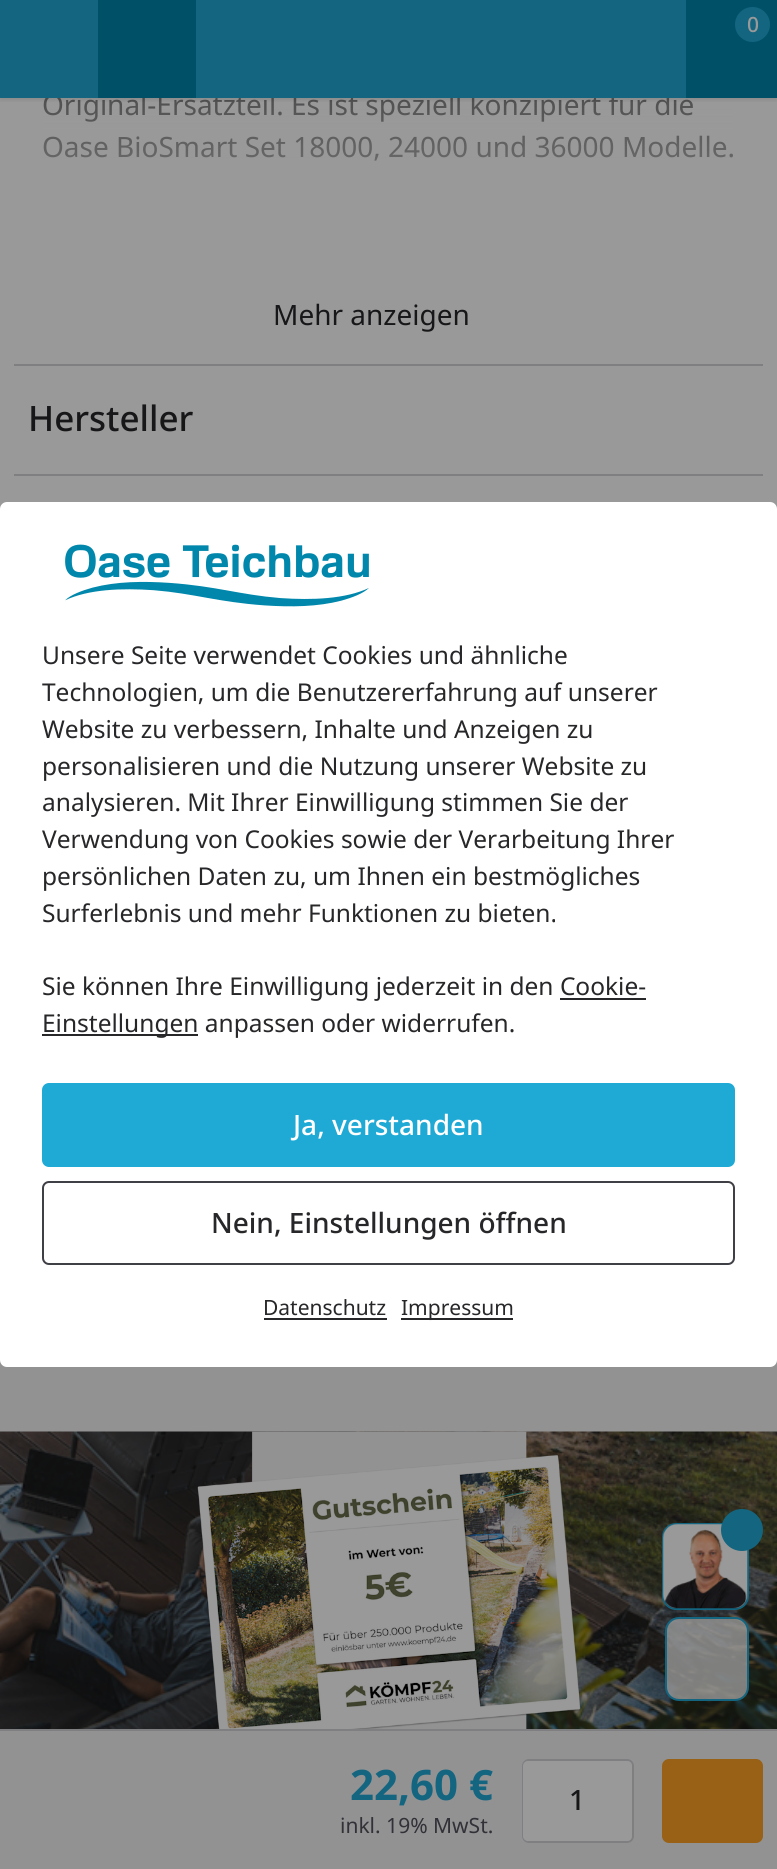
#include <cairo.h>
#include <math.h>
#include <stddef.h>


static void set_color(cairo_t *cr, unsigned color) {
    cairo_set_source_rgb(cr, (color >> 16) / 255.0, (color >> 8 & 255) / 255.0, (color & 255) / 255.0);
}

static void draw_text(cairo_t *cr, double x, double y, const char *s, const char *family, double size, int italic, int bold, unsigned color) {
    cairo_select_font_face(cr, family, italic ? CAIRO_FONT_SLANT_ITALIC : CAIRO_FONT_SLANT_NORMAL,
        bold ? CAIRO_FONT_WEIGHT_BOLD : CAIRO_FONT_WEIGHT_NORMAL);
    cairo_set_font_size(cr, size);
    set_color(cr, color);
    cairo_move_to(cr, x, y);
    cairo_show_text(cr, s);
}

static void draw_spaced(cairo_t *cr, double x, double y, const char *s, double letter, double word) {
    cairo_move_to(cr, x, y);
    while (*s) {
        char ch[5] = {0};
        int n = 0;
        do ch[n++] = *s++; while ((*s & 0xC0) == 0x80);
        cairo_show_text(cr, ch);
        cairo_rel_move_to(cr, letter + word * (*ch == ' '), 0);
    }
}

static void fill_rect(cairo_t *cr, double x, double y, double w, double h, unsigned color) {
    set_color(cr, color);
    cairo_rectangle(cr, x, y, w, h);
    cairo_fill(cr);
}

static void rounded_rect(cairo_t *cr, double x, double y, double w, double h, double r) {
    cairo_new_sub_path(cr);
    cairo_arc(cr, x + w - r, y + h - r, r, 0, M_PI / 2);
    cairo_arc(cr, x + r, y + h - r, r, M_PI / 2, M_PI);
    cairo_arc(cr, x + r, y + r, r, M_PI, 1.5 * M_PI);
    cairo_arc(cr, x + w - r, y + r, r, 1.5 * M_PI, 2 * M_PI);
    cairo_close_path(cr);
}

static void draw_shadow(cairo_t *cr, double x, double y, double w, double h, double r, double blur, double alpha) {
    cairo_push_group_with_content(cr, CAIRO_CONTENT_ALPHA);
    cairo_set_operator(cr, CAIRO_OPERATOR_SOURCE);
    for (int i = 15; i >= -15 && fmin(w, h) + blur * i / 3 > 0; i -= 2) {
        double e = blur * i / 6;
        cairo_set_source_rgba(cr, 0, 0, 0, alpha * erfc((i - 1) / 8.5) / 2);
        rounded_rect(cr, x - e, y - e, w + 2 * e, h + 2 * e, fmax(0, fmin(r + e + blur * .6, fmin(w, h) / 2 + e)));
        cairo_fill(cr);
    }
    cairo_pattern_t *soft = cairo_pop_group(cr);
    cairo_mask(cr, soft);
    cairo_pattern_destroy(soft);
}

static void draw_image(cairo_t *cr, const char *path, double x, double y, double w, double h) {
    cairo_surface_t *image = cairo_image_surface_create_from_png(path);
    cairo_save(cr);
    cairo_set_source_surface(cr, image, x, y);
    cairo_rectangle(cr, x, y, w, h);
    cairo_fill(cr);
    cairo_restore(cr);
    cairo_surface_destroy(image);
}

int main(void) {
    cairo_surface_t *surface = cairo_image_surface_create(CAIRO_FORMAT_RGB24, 777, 1869);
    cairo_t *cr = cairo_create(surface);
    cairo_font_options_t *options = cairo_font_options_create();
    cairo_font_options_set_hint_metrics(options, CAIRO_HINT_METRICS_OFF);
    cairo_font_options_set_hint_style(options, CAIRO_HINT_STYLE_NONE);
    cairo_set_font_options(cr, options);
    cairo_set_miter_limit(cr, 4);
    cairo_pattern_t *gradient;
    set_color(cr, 0x999999);
    cairo_paint(cr);
    draw_text(cr, 42, 115, "Original-Ersatzteil. Es ist speziell konzipiert für die", "Noto Sans", 28, 0, 0, 0x171719);
    fill_rect(cr, 0, 0, 686, 98, 0x136580);
    draw_text(cr, 42, 157, "Oase BioSmart Set 18000, 24000 und 36000 Modelle.", "Noto Sans", 28, 0, 0, 0x171719);
    gradient = cairo_pattern_create_linear(389, 294, 389, -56);
    cairo_pattern_add_color_stop_rgba(gradient, 0, 0.6, 0.6, 0.6, 1);
    cairo_pattern_add_color_stop_rgba(gradient, 1, 0.6, 0.6, 0.6, 0);
    cairo_set_source(cr, gradient);
    cairo_pattern_destroy(gradient);
    cairo_rectangle(cr, 43, 98, 690, 63);
    cairo_fill(cr);
    cairo_save(cr);
    cairo_rectangle(cr, 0, 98, 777, 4);
    cairo_clip(cr);
    set_color(cr, 0x000000);
    draw_shadow(cr, 0, 2, 777, 98, 0, 2.5, 0.1);
    cairo_restore(cr);
    fill_rect(cr, 98, 0, 98, 98, 0x005167);
    fill_rect(cr, 686, 0, 91, 98, 0x005167);
    set_color(cr, 0x136580);
    cairo_arc(cr, 752.5, 24.5, 17.5, 0, 2 * M_PI);
    cairo_fill(cr);
    cairo_select_font_face(cr, "Noto Sans Medium", CAIRO_FONT_SLANT_NORMAL, CAIRO_FONT_WEIGHT_NORMAL);
    cairo_set_font_size(cr, 21);
    set_color(cr, 0x999999);
    draw_spaced(cr, 747, 32, "0", 2, 0);
    fill_rect(cr, 14, 364, 749, 2, 0x7F7F82);
    draw_text(cr, 273, 325, "Mehr anzeigen", "Noto Sans", 28, 0, 0, 0x171719);
    fill_rect(cr, 14, 474, 749, 2, 0x7F7F82);
    draw_text(cr, 28, 431, "Hersteller", "Noto Sans Medium", 35, 0, 0, 0x171719);
    fill_rect(cr, 0, 1731, 777, 138, 0x929293);
    fill_rect(cr, 0, 1729, 777, 2, 0x7F7F82);
    draw_text(cr, 350, 1800, "22,60 €", "Noto Sans", 42, 0, 1, 0x136580);
    draw_text(cr, 340, 1833, "inkl. 19% MwSt.", "Noto Sans", 21, 0, 0, 0x313137);
    rounded_rect(cr, 523, 1760, 110, 82, 6);
    set_color(cr, 0x7F7F82);
    cairo_stroke(cr);
    set_color(cr, 0x999999);
    rounded_rect(cr, 523, 1761, 109, 80, 5);
    cairo_fill(cr);
    draw_text(cr, 569, 1810, "1", "Noto Sans Medium", 28, 0, 0, 0x171719);
    set_color(cr, 0x986116);
    rounded_rect(cr, 662, 1759, 101, 84, 7);
    cairo_fill(cr);
    fill_rect(cr, 0, 1360, 777, 72, 0x929293);
    set_color(cr, 0xFFFFFF);
    rounded_rect(cr, 0, 502, 777, 865, 7);
    cairo_fill(cr);
    draw_image(cr, "assets/img1.png", 65, 544, 304, 63);
    draw_text(cr, 42, 664, "Unsere Seite verwendet Cookies und ähnliche", "Noto Sans", 24.5, 0, 0, 0x27272A);
    draw_text(cr, 42, 701, "Technologien, um die Benutzererfahrung auf unserer", "Noto Sans", 24.5, 0, 0, 0x27272A);
    draw_text(cr, 42, 738, "Website zu verbessern, Inhalte und Anzeigen zu", "Noto Sans", 24.5, 0, 0, 0x27272A);
    draw_text(cr, 42, 775, "personalisieren und die Nutzung unserer Website zu", "Noto Sans", 24.5, 0, 0, 0x27272A);
    draw_text(cr, 42, 811, "analysieren. Mit Ihrer Einwilligung stimmen Sie der", "Noto Sans", 24.5, 0, 0, 0x27272A);
    draw_text(cr, 42, 848, "Verwendung von Cookies sowie der Verarbeitung Ihrer", "Noto Sans", 24.5, 0, 0, 0x27272A);
    draw_text(cr, 42, 885, "persönlichen Daten zu, um Ihnen ein bestmögliches", "Noto Sans", 24.5, 0, 0, 0x27272A);
    draw_text(cr, 42, 922, "Surferlebnis und mehr Funktionen zu bieten.", "Noto Sans", 24.5, 0, 0, 0x27272A);
    draw_text(cr, 42, 995, "Sie können Ihre Einwilligung jederzeit in den Cookie-", "Noto Sans", 24.5, 0, 0, 0x27272A);
    fill_rect(cr, 42, 1034, 156, 2, 0x27272A);
    draw_text(cr, 42, 1032, "Einstellungen anpassen oder widerrufen.", "Noto Sans", 24.5, 0, 0, 0x27272A);
    fill_rect(cr, 560, 998, 86, 2, 0x27272A);
    set_color(cr, 0x1FA9D5);
    rounded_rect(cr, 42, 1083, 693, 84, 7);
    cairo_fill(cr);
    draw_text(cr, 293, 1135, "Ja, verstanden", "Noto Sans Medium", 28, 0, 0, 0xFFFFFF);
    rounded_rect(cr, 43, 1182, 691, 82, 6);
    set_color(cr, 0x3F3F46);
    cairo_stroke(cr);
    draw_text(cr, 211, 1233, "Nein, Einstellungen öffnen", "Noto Sans Medium", 28, 0, 0, 0x27272A);
    draw_text(cr, 263, 1315, "Datenschutz", "Noto Sans", 21, 0, 0, 0x27272A);
    fill_rect(cr, 264, 1318, 123, 2, 0x27272A);
    fill_rect(cr, 401, 1318, 112, 2, 0x27272A);
    draw_text(cr, 401, 1315, "Impressum", "Noto Sans", 21, 0, 0, 0x27272A);
    draw_image(cr, "assets/img2.png", 0, 1431, 777, 298);
    draw_image(cr, "assets/img3.png", 197, 1431, 384, 298);
    set_color(cr, 0x999999);
    rounded_rect(cr, 663, 1524, 85, 85, 13);
    cairo_fill_preserve(cr);
    set_color(cr, 0x136580);
    cairo_stroke(cr);
    draw_image(cr, "assets/img4.png", 663, 1524, 85, 85);
    cairo_arc(cr, 742, 1530, 21, 0, 2 * M_PI);
    cairo_fill(cr);
    cairo_set_source_rgba(cr, 0.6, 0.6, 0.6, 0.8);
    rounded_rect(cr, 666, 1618, 82, 82, 13);
    cairo_fill_preserve(cr);
    set_color(cr, 0x136580);
    cairo_stroke(cr);
    cairo_surface_write_to_png(surface, "output.png");
    cairo_font_options_destroy(options);
    cairo_destroy(cr);
    cairo_surface_destroy(surface);
    return 0;
}
